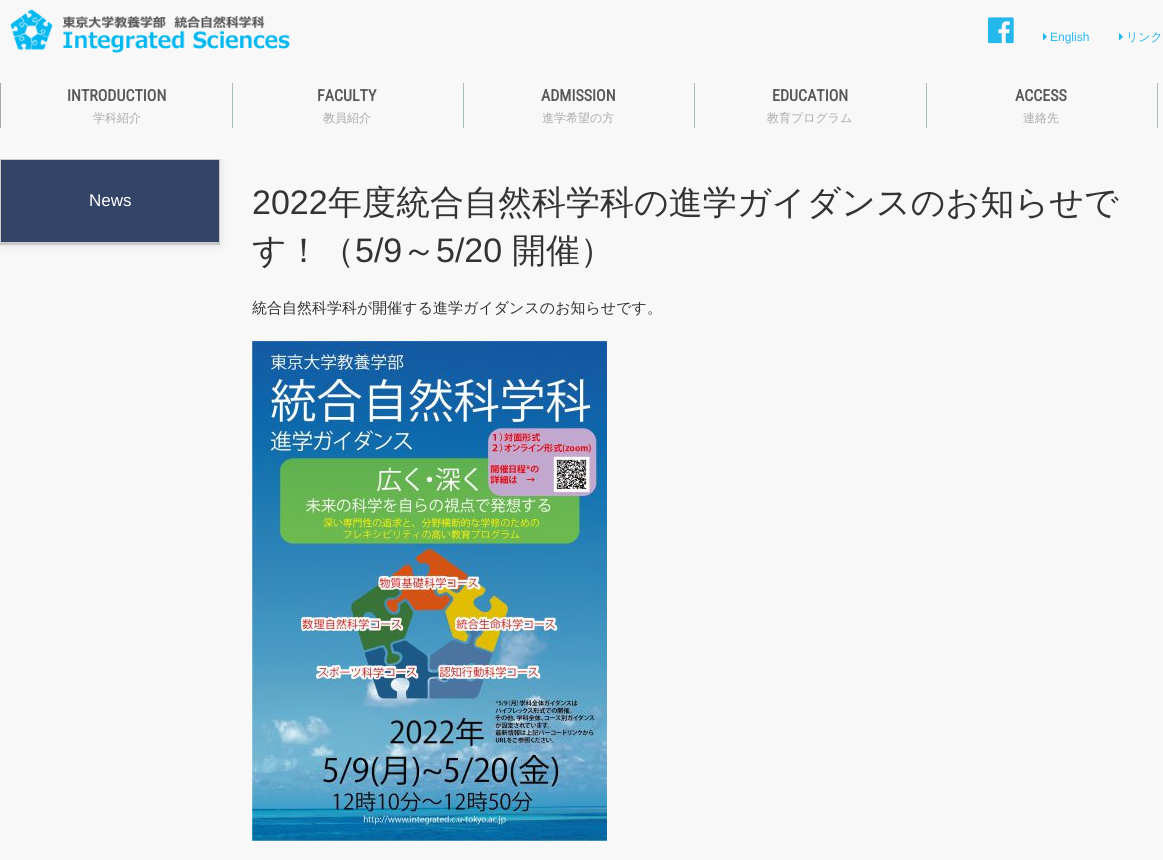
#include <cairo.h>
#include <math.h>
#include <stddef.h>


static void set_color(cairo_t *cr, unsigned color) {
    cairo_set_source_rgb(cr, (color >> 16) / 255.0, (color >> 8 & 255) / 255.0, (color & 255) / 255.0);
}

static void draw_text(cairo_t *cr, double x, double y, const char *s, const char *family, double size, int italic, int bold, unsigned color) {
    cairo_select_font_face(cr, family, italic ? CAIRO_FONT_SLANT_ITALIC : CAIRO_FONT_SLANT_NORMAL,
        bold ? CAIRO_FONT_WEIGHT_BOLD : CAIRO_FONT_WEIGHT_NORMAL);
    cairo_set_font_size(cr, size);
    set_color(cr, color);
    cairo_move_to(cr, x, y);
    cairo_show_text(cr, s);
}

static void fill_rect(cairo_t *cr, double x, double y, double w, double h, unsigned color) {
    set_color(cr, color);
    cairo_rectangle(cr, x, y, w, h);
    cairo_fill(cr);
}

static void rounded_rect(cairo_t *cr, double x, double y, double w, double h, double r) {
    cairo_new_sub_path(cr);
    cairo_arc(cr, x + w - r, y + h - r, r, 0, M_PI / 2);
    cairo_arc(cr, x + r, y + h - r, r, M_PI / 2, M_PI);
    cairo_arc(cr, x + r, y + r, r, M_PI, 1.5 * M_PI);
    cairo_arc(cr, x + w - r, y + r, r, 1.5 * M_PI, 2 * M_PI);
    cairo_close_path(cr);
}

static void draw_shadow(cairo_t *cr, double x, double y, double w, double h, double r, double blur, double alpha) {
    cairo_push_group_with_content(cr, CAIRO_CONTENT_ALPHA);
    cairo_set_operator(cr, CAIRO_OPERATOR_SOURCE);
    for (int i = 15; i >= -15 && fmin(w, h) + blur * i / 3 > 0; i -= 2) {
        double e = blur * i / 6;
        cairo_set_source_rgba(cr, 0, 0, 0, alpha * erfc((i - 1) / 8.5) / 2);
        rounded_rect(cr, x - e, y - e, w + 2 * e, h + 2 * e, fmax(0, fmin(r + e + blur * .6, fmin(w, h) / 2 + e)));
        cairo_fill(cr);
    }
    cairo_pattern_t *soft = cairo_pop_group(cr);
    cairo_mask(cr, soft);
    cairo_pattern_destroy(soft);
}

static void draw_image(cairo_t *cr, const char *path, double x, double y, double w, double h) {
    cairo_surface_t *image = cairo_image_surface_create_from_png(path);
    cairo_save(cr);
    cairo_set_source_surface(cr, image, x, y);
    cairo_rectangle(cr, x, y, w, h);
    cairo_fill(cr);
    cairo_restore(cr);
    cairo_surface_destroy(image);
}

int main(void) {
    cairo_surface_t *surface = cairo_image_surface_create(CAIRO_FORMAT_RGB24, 1163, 860);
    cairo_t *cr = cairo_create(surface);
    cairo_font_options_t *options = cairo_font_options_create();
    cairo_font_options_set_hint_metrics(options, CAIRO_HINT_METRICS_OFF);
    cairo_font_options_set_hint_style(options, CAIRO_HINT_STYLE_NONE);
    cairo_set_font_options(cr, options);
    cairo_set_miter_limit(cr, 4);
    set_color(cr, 0xF8F8F8);
    cairo_paint(cr);
    draw_image(cr, "assets/img1.png", 10, 10, 280, 43);
    draw_image(cr, "assets/img2.png", 988, 17, 26, 27);
    draw_image(cr, "assets/img3.png", 1043, 33, 4, 8);
    draw_text(cr, 1050, 41, "English", "Liberation Sans", 12, 0, 0, 0x25B8EC);
    draw_image(cr, "assets/img3.png", 1119, 33, 4, 8);
    draw_text(cr, 1126, 41, "リンク", "WenQuanYi Zen Hei Medium", 12, 0, 0, 0x25B8EC);
    fill_rect(cr, 232, 83, 1, 45, 0xAABBBB);
    fill_rect(cr, 0, 83, 1, 45, 0xAAAAAA);
    draw_text(cr, 67, 101, "INTRODUCTION", "Roboto Condensed", 16, 0, 1, 0x595757);
    draw_text(cr, 93, 122, "学科紹介", "WenQuanYi Zen Hei Medium", 12, 0, 0, 0xAAAAAA);
    fill_rect(cr, 463, 83, 1, 45, 0xAABBBB);
    draw_text(cr, 317, 101, "FACULTY", "Roboto Condensed", 16, 0, 1, 0x595757);
    draw_text(cr, 323, 122, "教員紹介", "WenQuanYi Zen Hei Medium", 12, 0, 0, 0xAAAAAA);
    fill_rect(cr, 694, 83, 1, 45, 0xAABBBB);
    draw_text(cr, 541, 101, "ADMISSION", "Roboto Condensed", 16, 0, 1, 0x595757);
    draw_text(cr, 542, 122, "進学希望の方", "WenQuanYi Zen Hei Medium", 12, 0, 0, 0xAAAAAA);
    fill_rect(cr, 926, 83, 1, 45, 0xAABBBB);
    draw_text(cr, 772, 101, "EDUCATION", "Roboto Condensed", 16, 0, 1, 0x595757);
    draw_text(cr, 767, 122, "教育プログラム", "WenQuanYi Zen Hei Medium", 12, 0, 0, 0xAAAAAA);
    fill_rect(cr, 1157, 83, 1, 45, 0xAABBBB);
    draw_text(cr, 1015, 101, "ACCESS", "Roboto Condensed", 16, 0, 1, 0x595757);
    draw_text(cr, 1023, 122, "連絡先", "WenQuanYi Zen Hei Medium", 12, 0, 0, 0xAAAAAA);
    cairo_save(cr);
    cairo_rectangle(cr, 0, 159, 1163, 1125);
    cairo_clip(cr);
    set_color(cr, 0x000000);
    draw_shadow(cr, 0, 159, 220, 86, 0, 5, 0.1);
    cairo_restore(cr);
    set_color(cr, 0x334466);
    cairo_rectangle(cr, 0.5, 159.5, 219, 83);
    cairo_fill_preserve(cr);
    set_color(cr, 0xCCCCCC);
    cairo_set_line_width(cr, 1);
    cairo_stroke(cr);
    draw_text(cr, 89, 206, "News", "Liberation Sans", 17, 0, 0, 0xFFFFFF);
    fill_rect(cr, 0, 243, 220, 2, 0xC8C8C8);
    draw_text(cr, 252, 214, "2022", "Liberation Sans", 34, 0, 0, 0x333333);
    draw_text(cr, 328, 214, "年度統合自然科学科の進学ガイダンスのお知らせで", "WenQuanYi Zen Hei Medium", 34, 0, 0, 0x333333);
    draw_text(cr, 252, 262, "す！（", "WenQuanYi Zen Hei Medium", 34, 0, 0, 0x333333);
    draw_text(cr, 355, 262, "5/9", "Liberation Sans", 34, 0, 0, 0x333333);
    draw_text(cr, 402, 262, "～", "WenQuanYi Zen Hei Medium", 34, 0, 0, 0x333333);
    draw_text(cr, 436, 262, "5/20", "Liberation Sans", 34, 0, 0, 0x333333);
    draw_text(cr, 512, 262, "開催）", "WenQuanYi Zen Hei Medium", 34, 0, 0, 0x333333);
    draw_text(cr, 252, 313, "統合自然科学科が開催する進学ガイダンスのお知らせです。", "WenQuanYi Zen Hei Medium", 15, 0, 0, 0x333333);
    draw_image(cr, "assets/img4.png", 252, 341, 355, 500);
    cairo_surface_write_to_png(surface, "output.png");
    cairo_font_options_destroy(options);
    cairo_destroy(cr);
    cairo_surface_destroy(surface);
    return 0;
}
